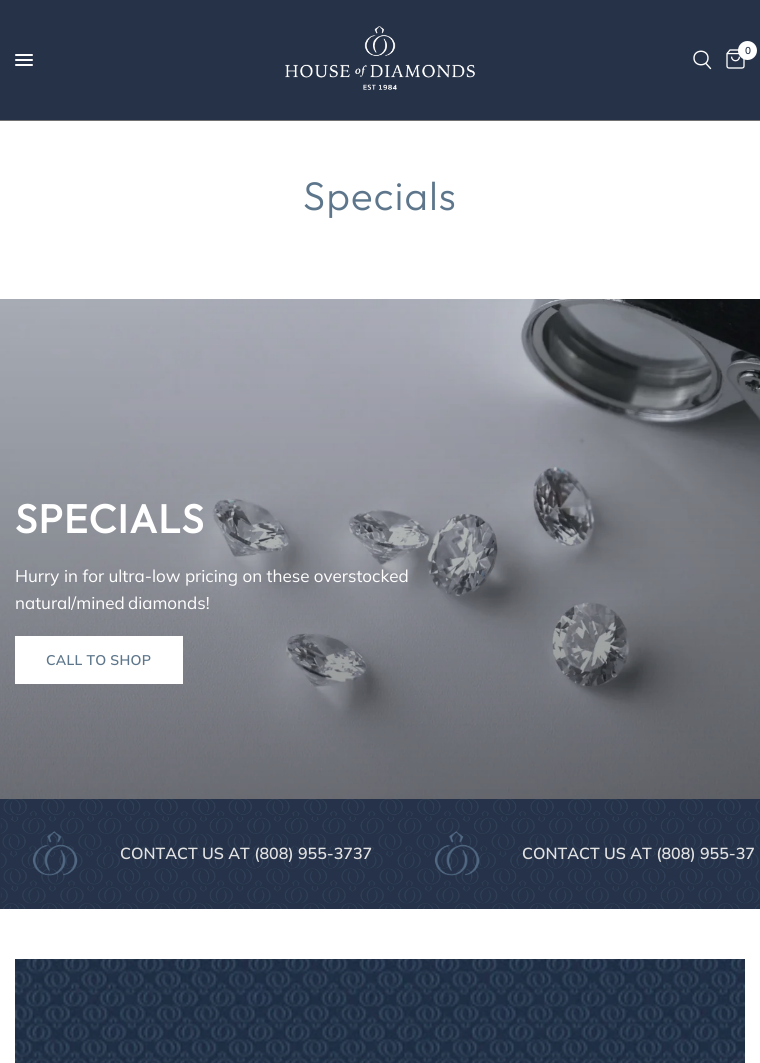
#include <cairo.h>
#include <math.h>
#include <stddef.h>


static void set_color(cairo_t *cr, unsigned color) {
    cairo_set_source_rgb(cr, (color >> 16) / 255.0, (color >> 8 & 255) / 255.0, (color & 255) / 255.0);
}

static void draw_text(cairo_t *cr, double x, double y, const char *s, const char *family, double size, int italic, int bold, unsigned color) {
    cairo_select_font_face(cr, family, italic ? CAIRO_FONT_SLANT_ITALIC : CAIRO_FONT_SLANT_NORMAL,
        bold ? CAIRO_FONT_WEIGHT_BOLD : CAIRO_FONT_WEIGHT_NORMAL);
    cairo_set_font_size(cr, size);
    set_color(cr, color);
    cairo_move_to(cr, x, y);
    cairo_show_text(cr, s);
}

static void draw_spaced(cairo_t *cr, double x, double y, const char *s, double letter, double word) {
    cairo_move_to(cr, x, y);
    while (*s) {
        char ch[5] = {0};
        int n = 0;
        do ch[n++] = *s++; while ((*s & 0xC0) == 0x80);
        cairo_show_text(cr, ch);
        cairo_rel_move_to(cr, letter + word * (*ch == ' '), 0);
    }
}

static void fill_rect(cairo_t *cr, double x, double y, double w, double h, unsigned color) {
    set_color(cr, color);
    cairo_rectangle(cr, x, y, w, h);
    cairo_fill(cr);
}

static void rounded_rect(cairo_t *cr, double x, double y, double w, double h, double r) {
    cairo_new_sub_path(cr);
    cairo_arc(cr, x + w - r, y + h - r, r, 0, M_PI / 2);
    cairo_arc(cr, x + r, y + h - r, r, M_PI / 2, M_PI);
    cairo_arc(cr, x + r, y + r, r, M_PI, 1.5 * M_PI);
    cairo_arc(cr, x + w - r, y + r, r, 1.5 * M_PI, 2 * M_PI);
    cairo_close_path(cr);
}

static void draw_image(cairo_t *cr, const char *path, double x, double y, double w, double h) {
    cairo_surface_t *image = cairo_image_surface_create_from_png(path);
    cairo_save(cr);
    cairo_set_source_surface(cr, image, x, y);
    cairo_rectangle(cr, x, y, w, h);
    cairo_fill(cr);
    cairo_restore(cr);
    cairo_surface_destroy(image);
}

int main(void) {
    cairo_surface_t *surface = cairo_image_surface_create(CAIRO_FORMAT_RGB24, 760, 1063);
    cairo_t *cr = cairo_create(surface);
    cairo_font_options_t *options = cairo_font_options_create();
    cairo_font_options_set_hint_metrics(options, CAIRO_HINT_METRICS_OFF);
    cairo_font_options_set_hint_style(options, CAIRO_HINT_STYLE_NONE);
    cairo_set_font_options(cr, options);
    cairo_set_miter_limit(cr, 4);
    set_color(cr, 0xFFFFFF);
    cairo_paint(cr);
    fill_rect(cr, 0, 0, 760, 120, 0x263248);
    fill_rect(cr, 0, 120, 760, 1, 0x737272);
    draw_image(cr, "assets/img1.png", 285, 26, 190, 64);
    cairo_new_path(cr);
    cairo_move_to(cr, 706, 63.5);
    cairo_line_to(cr, 710.5, 68.5);
    cairo_move_to(cr, 708, 58);
    cairo_curve_to(cr, 708, 67, 694, 67, 694, 58);
    cairo_curve_to(cr, 694, 49, 708, 49, 708, 58);
    cairo_close_path(cr);
    set_color(cr, 0xFFFFFF);
    cairo_set_line_width(cr, 1.4);
    cairo_set_line_cap(cr, CAIRO_LINE_CAP_ROUND);
    cairo_set_line_join(cr, CAIRO_LINE_JOIN_ROUND);
    cairo_stroke(cr);
    draw_image(cr, "assets/img2.png", 726, 49, 19, 20);
    cairo_arc(cr, 747.5, 50.5, 9.5, 0, 2 * M_PI);
    cairo_fill(cr);
    draw_text(cr, 745, 54, "0", "Muli SemiBold", 10, 0, 0, 0x263248);
    set_color(cr, 0xFFFFFF);
    rounded_rect(cr, 15, 54, 18, 2, 1);
    cairo_fill(cr);
    rounded_rect(cr, 15, 59, 18, 2, 1);
    cairo_fill(cr);
    rounded_rect(cr, 15, 64, 18, 2, 1);
    cairo_fill(cr);
    cairo_select_font_face(cr, "Outfit Light", CAIRO_FONT_SLANT_NORMAL, CAIRO_FONT_WEIGHT_NORMAL);
    cairo_set_font_size(cr, 40);
    set_color(cr, 0x5D768B);
    draw_spaced(cr, 303, 210, "Specials", 1.25, 0);
    draw_image(cr, "assets/img3.png", 0, 299, 760, 500);
    cairo_select_font_face(cr, "Outfit", CAIRO_FONT_SLANT_NORMAL, CAIRO_FONT_WEIGHT_BOLD);
    set_color(cr, 0xFFFFFF);
    draw_spaced(cr, 15, 533, "SPECIALS", 1.25, 0);
    draw_text(cr, 15, 582, "Hurry", "Muli", 17, 0, 0, 0xFFFFFF);
    draw_text(cr, 64, 582, "in for ultra-low pricing on these overstocked", "Muli", 17, 0, 0, 0xFFFFFF);
    draw_text(cr, 15, 609, "natural/mined", "Muli", 17, 0, 0, 0xFFFFFF);
    draw_text(cr, 128, 609, "diamonds!", "Muli", 17, 0, 0, 0xFFFFFF);
    fill_rect(cr, 15, 636, 168, 48, 0xFFFFFF);
    cairo_select_font_face(cr, "Muli SemiBold", CAIRO_FONT_SLANT_NORMAL, CAIRO_FONT_WEIGHT_NORMAL);
    cairo_set_font_size(cr, 14);
    set_color(cr, 0x5D768B);
    draw_spaced(cr, 46, 665, "CALL TO SHOP", 0.25, 0);
    draw_image(cr, "assets/img4.png", 0, 799, 760, 110);
    draw_image(cr, "assets/img5.png", 32, 831, 46, 45);
    draw_text(cr, 120, 859, "CONTACT US AT (808) 955-3737", "Muli SemiBold", 16, 0, 0, 0xE2E2E2);
    draw_image(cr, "assets/img6.png", 434, 831, 46, 45);
    draw_text(cr, 522, 859, "CONTACT US AT (808) 955-37", "Muli SemiBold", 16, 0, 0, 0xE2E2E2);
    draw_image(cr, "assets/img7.png", 15, 959, 730, 104);
    cairo_surface_write_to_png(surface, "output.png");
    cairo_font_options_destroy(options);
    cairo_destroy(cr);
    cairo_surface_destroy(surface);
    return 0;
}
